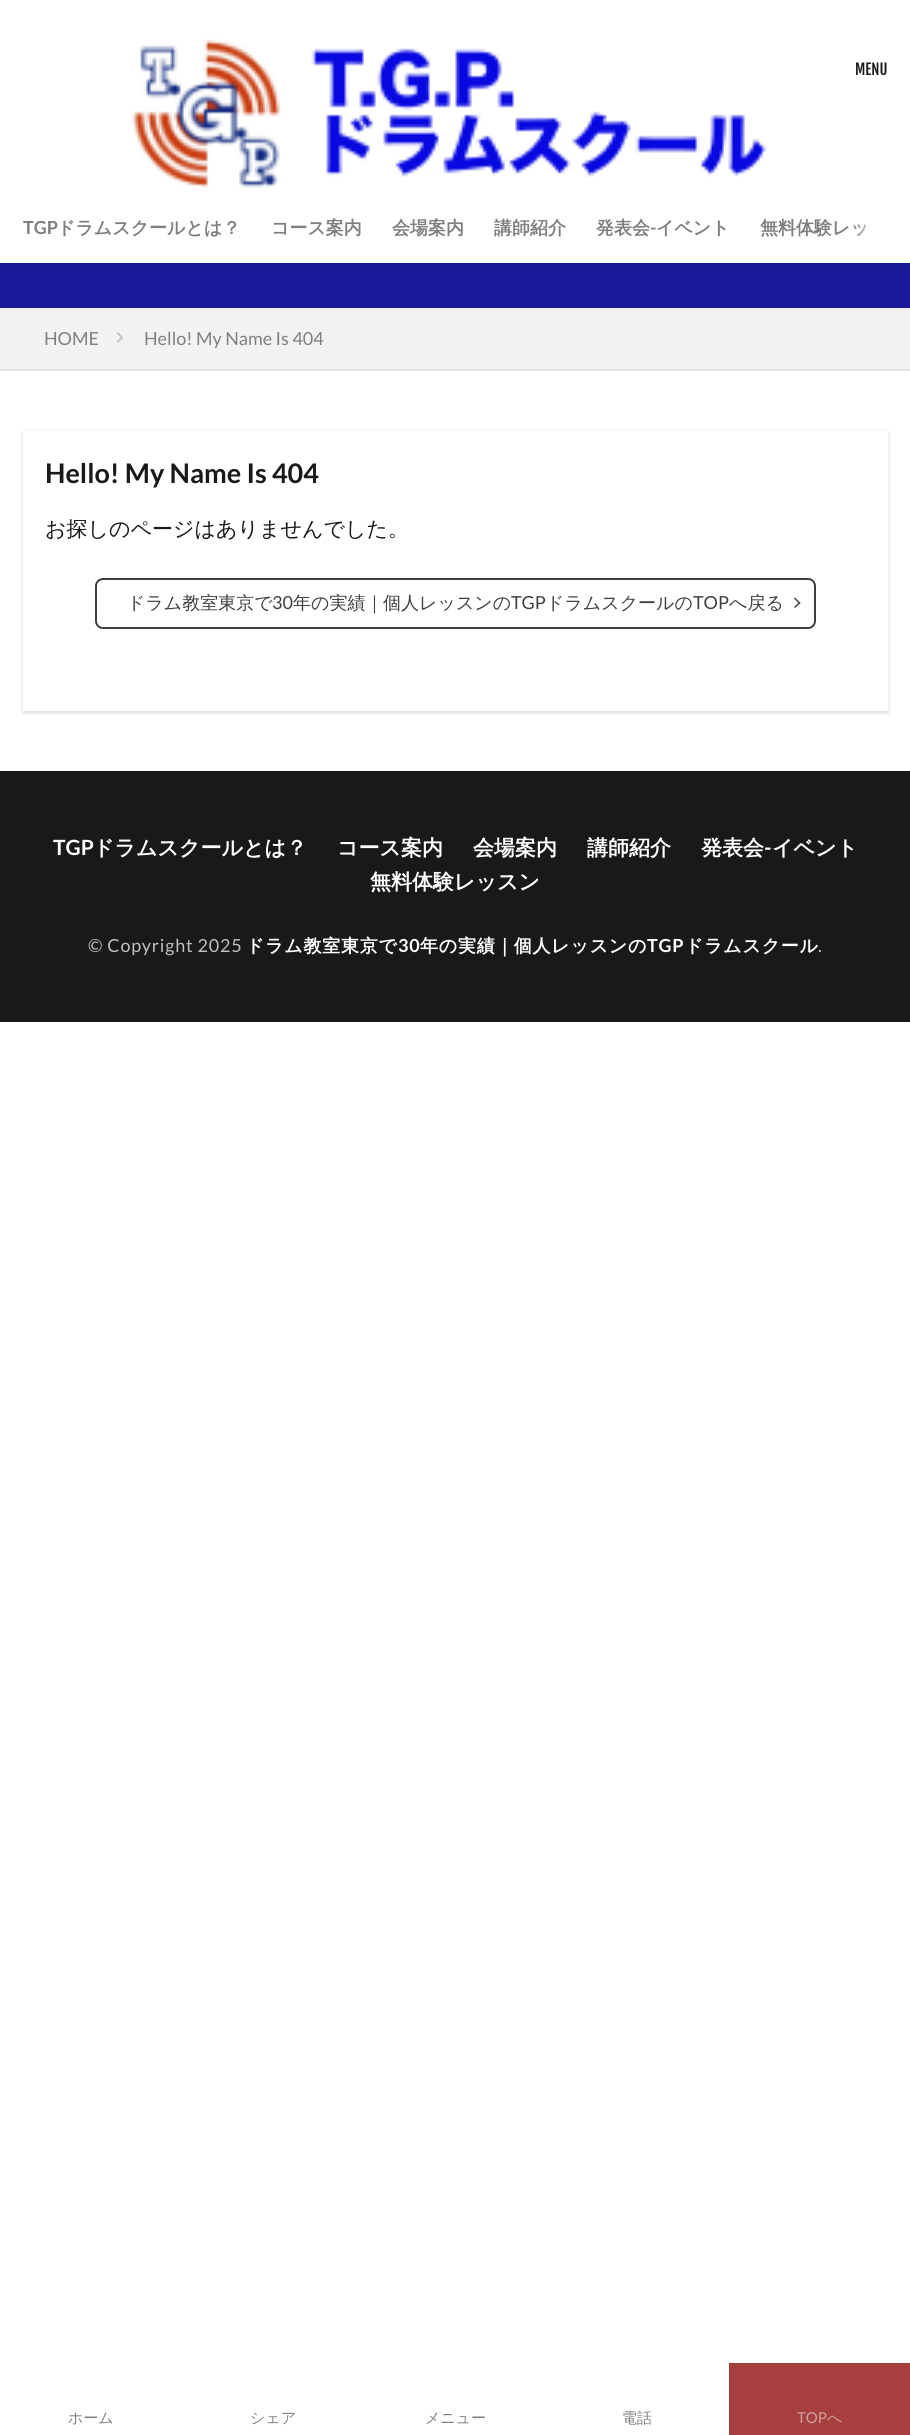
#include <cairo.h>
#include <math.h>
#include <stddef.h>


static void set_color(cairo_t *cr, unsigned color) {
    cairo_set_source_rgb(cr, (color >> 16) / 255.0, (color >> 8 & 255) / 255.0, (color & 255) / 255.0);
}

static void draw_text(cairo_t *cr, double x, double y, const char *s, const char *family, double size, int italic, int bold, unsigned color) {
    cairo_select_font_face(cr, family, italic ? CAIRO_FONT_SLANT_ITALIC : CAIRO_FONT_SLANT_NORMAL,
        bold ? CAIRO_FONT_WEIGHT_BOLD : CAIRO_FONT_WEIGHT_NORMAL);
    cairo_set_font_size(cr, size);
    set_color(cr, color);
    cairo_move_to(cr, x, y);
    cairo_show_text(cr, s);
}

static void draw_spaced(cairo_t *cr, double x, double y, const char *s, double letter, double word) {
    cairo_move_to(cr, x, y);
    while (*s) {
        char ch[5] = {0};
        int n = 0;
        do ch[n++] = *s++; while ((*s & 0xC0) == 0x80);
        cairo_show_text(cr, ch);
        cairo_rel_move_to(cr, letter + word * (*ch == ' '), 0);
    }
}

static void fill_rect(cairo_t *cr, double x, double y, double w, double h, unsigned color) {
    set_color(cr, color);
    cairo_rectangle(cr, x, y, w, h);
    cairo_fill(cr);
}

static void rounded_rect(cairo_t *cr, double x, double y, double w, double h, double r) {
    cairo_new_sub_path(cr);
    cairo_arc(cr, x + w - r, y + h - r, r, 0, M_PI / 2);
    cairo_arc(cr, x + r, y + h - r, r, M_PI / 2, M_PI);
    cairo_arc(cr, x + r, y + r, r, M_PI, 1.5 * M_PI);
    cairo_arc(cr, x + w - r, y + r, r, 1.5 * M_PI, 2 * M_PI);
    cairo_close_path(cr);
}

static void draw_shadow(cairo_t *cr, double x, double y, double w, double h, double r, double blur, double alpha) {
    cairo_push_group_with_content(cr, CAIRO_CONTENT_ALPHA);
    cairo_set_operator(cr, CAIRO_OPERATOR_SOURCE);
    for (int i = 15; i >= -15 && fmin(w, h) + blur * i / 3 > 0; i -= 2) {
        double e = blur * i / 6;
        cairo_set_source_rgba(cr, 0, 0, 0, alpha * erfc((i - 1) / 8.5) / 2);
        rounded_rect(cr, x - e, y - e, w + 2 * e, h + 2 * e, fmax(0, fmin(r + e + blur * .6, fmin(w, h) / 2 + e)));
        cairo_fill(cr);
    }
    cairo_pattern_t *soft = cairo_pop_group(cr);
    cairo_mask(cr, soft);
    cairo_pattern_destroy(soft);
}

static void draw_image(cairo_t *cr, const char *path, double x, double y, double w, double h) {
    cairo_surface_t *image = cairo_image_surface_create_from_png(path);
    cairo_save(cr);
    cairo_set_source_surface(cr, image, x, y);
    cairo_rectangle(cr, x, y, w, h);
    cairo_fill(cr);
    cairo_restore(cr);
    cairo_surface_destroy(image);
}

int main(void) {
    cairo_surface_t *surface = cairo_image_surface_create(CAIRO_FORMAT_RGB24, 910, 2435);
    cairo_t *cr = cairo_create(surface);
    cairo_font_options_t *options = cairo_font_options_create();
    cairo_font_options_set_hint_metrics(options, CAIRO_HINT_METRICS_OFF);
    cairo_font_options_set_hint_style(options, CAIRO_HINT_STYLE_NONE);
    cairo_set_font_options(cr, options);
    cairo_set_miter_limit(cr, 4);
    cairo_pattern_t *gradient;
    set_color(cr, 0xFFFFFF);
    cairo_paint(cr);
    fill_rect(cr, 0, 263, 910, 45, 0x19199A);
    set_color(cr, 0x000000);
    draw_shadow(cr, 0, 2, 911, 262, 0, 1.5, 0.15);
    fill_rect(cr, 0, 0, 910, 263, 0xFFFFFF);
    draw_image(cr, "assets/img1.png", 131, 39, 635, 149);
    draw_text(cr, 855, 75, "MENU", "Fjalla One", 15, 0, 0, 0x191919);
    draw_text(cr, 23, 234, "TGP", "Lato", 18, 0, 1, 0x7F7F7F);
    draw_text(cr, 57, 234, "ドラムスクールとは？", "WenQuanYi Zen Hei", 18, 0, 1, 0x7F7F7F);
    draw_text(cr, 271, 234, "コース案内", "WenQuanYi Zen Hei", 18, 0, 1, 0x7F7F7F);
    draw_text(cr, 392, 234, "会場案内", "WenQuanYi Zen Hei", 18, 0, 1, 0x7F7F7F);
    draw_text(cr, 494, 234, "講師紹介", "WenQuanYi Zen Hei", 18, 0, 1, 0x7F7F7F);
    draw_text(cr, 596, 234, "発表会", "WenQuanYi Zen Hei", 18, 0, 1, 0x7F7F7F);
    draw_text(cr, 650, 234, "-", "Lato", 18, 0, 1, 0x7F7F7F);
    draw_text(cr, 656, 234, "イベント", "WenQuanYi Zen Hei", 18, 0, 1, 0x7F7F7F);
    draw_text(cr, 760, 234, "無料体験レッ", "WenQuanYi Zen Hei", 18, 0, 1, 0x7F7F7F);
    gradient = cairo_pattern_create_linear(851, 210, 888, 210);
    cairo_pattern_add_color_stop_rgba(gradient, 0, 1, 1, 1, 0);
    cairo_pattern_add_color_stop_rgba(gradient, 1, 1, 1, 1, 1);
    cairo_set_source(cr, gradient);
    cairo_pattern_destroy(gradient);
    cairo_rectangle(cr, 853, 225, 13, 11);
    cairo_fill(cr);
    fill_rect(cr, 0, 308, 910, 61, 0xF2F2F2);
    fill_rect(cr, 0, 369, 910, 2, 0xE6E6E6);
    draw_text(cr, 44, 345, "HOME", "Lato", 18, 0, 0, 0x7F7F7F);
    set_color(cr, 0xBFBFBF);
    cairo_new_path(cr);
    cairo_move_to(cr, 118, 332);
    cairo_line_to(cr, 123, 337.5);
    cairo_line_to(cr, 122, 338.5);
    cairo_line_to(cr, 116.5, 333.5);
    cairo_close_path(cr);
    cairo_fill(cr);
    cairo_new_path(cr);
    cairo_move_to(cr, 122, 336.5);
    cairo_line_to(cr, 123, 337.5);
    cairo_line_to(cr, 118, 343);
    cairo_line_to(cr, 116.5, 341.5);
    cairo_close_path(cr);
    cairo_fill(cr);
    draw_text(cr, 144, 345, "Hello! My Name Is 404", "Lato", 18, 0, 0, 0x7F7F7F);
    cairo_save(cr);
    cairo_set_fill_rule(cr, CAIRO_FILL_RULE_EVEN_ODD);
    cairo_new_path(cr);
    cairo_move_to(cr, 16, 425);
    cairo_line_to(cr, 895, 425);
    cairo_line_to(cr, 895, 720);
    cairo_line_to(cr, 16, 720);
    cairo_close_path(cr);
    cairo_move_to(cr, 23, 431);
    cairo_line_to(cr, 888, 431);
    cairo_line_to(cr, 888, 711);
    cairo_line_to(cr, 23, 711);
    cairo_close_path(cr);
    cairo_clip(cr);
    set_color(cr, 0x000000);
    draw_shadow(cr, 23, 432, 865, 281, 0, 2, 0.15);
    cairo_restore(cr);
    draw_text(cr, 45, 483, "Hello! My Name Is 404", "Lato", 27, 0, 1, 0x191919);
    draw_text(cr, 45, 536, "お探しのページはありませんでした。", "WenQuanYi Zen Hei Medium", 21, 0, 0, 0x191919);
    rounded_rect(cr, 96, 579, 719, 49, 7);
    set_color(cr, 0x3F3F3F);
    cairo_stroke(cr);
    draw_text(cr, 127, 609, "ドラム教室東京で", "WenQuanYi Zen Hei Medium", 18, 0, 0, 0x3F3F3F);
    draw_text(cr, 272, 609, "30", "Lato", 18, 0, 0, 0x3F3F3F);
    draw_text(cr, 293, 609, "年の実績｜個人レッスンの", "WenQuanYi Zen Hei Medium", 18, 0, 0, 0x3F3F3F);
    draw_text(cr, 511, 609, "TGP", "Lato", 18, 0, 0, 0x3F3F3F);
    draw_text(cr, 546, 609, "ドラムスクールの", "WenQuanYi Zen Hei Medium", 18, 0, 0, 0x3F3F3F);
    draw_text(cr, 693, 609, "TOP", "Lato", 18, 0, 0, 0x3F3F3F);
    draw_text(cr, 729, 609, "へ戻る", "WenQuanYi Zen Hei Medium", 18, 0, 0, 0x3F3F3F);
    cairo_new_path(cr);
    cairo_move_to(cr, 795, 597.5);
    cairo_line_to(cr, 800.5, 603);
    cairo_line_to(cr, 799.5, 604);
    cairo_line_to(cr, 794, 598.5);
    cairo_close_path(cr);
    cairo_fill(cr);
    cairo_new_path(cr);
    cairo_move_to(cr, 799.5, 602);
    cairo_line_to(cr, 800.5, 603);
    cairo_line_to(cr, 795, 608);
    cairo_line_to(cr, 794, 607);
    cairo_close_path(cr);
    cairo_fill(cr);
    fill_rect(cr, 0, 771, 910, 251, 0x191919);
    draw_text(cr, 53, 855, "TGP", "Lato", 21, 0, 1, 0xFFFFFF);
    draw_text(cr, 93, 855, "ドラムスクールとは？", "WenQuanYi Zen Hei", 21, 0, 1, 0xFFFFFF);
    draw_text(cr, 337, 855, "コース案内", "WenQuanYi Zen Hei", 21, 0, 1, 0xFFFFFF);
    draw_text(cr, 473, 855, "会場案内", "WenQuanYi Zen Hei", 21, 0, 1, 0xFFFFFF);
    draw_text(cr, 587, 855, "講師紹介", "WenQuanYi Zen Hei", 21, 0, 1, 0xFFFFFF);
    draw_text(cr, 701, 855, "発表会", "WenQuanYi Zen Hei", 21, 0, 1, 0xFFFFFF);
    draw_text(cr, 764, 855, "-", "Lato", 21, 0, 1, 0xFFFFFF);
    draw_text(cr, 772, 855, "イベント", "WenQuanYi Zen Hei", 21, 0, 1, 0xFFFFFF);
    draw_text(cr, 370, 889, "無料体験レッスン", "WenQuanYi Zen Hei", 21, 0, 1, 0xFFFFFF);
    cairo_select_font_face(cr, "Lato", CAIRO_FONT_SLANT_NORMAL, CAIRO_FONT_WEIGHT_NORMAL);
    cairo_set_font_size(cr, 18);
    set_color(cr, 0xBFBFBF);
    draw_spaced(cr, 88, 952, "© Copyright 2025", 0.75, 0);
    cairo_select_font_face(cr, "WenQuanYi Zen Hei", CAIRO_FONT_SLANT_NORMAL, CAIRO_FONT_WEIGHT_BOLD);
    set_color(cr, 0xFFFFFF);
    draw_spaced(cr, 246, 952, "ドラム教室東京で", 0.75, 0);
    cairo_select_font_face(cr, "Lato", CAIRO_FONT_SLANT_NORMAL, CAIRO_FONT_WEIGHT_BOLD);
    draw_spaced(cr, 398, 952, "30", 0.75, 0);
    cairo_select_font_face(cr, "WenQuanYi Zen Hei", CAIRO_FONT_SLANT_NORMAL, CAIRO_FONT_WEIGHT_BOLD);
    draw_spaced(cr, 420, 952, "年の実績｜個人レッスンの", 0.75, 0);
    cairo_select_font_face(cr, "Lato", CAIRO_FONT_SLANT_NORMAL, CAIRO_FONT_WEIGHT_BOLD);
    draw_spaced(cr, 647, 952, "TGP", 0.75, 0);
    cairo_select_font_face(cr, "WenQuanYi Zen Hei", CAIRO_FONT_SLANT_NORMAL, CAIRO_FONT_WEIGHT_BOLD);
    draw_spaced(cr, 685, 952, "ドラムスクール", 0.75, 0);
    cairo_select_font_face(cr, "Lato", CAIRO_FONT_SLANT_NORMAL, CAIRO_FONT_WEIGHT_NORMAL);
    set_color(cr, 0xBFBFBF);
    draw_spaced(cr, 818, 952, ".", 0.75, 0);
    draw_text(cr, 68, 2423, "ホーム", "WenQuanYi Zen Hei Medium", 15, 0, 0, 0x7F7F7F);
    draw_text(cr, 250, 2423, "シェア", "WenQuanYi Zen Hei Medium", 15, 0, 0, 0x7F7F7F);
    draw_text(cr, 425, 2423, "メニュー", "WenQuanYi Zen Hei Medium", 15, 0, 0, 0x7F7F7F);
    draw_text(cr, 622, 2423, "電話", "WenQuanYi Zen Hei Medium", 15, 0, 0, 0x7F7F7F);
    fill_rect(cr, 729, 2363, 181, 72, 0xA83F3F);
    draw_text(cr, 797, 2423, "TOP", "Lato", 15, 0, 0, 0xD49F9F);
    draw_text(cr, 827, 2423, "へ", "WenQuanYi Zen Hei Medium", 15, 0, 0, 0xD49F9F);
    cairo_surface_write_to_png(surface, "output.png");
    cairo_font_options_destroy(options);
    cairo_destroy(cr);
    cairo_surface_destroy(surface);
    return 0;
}
